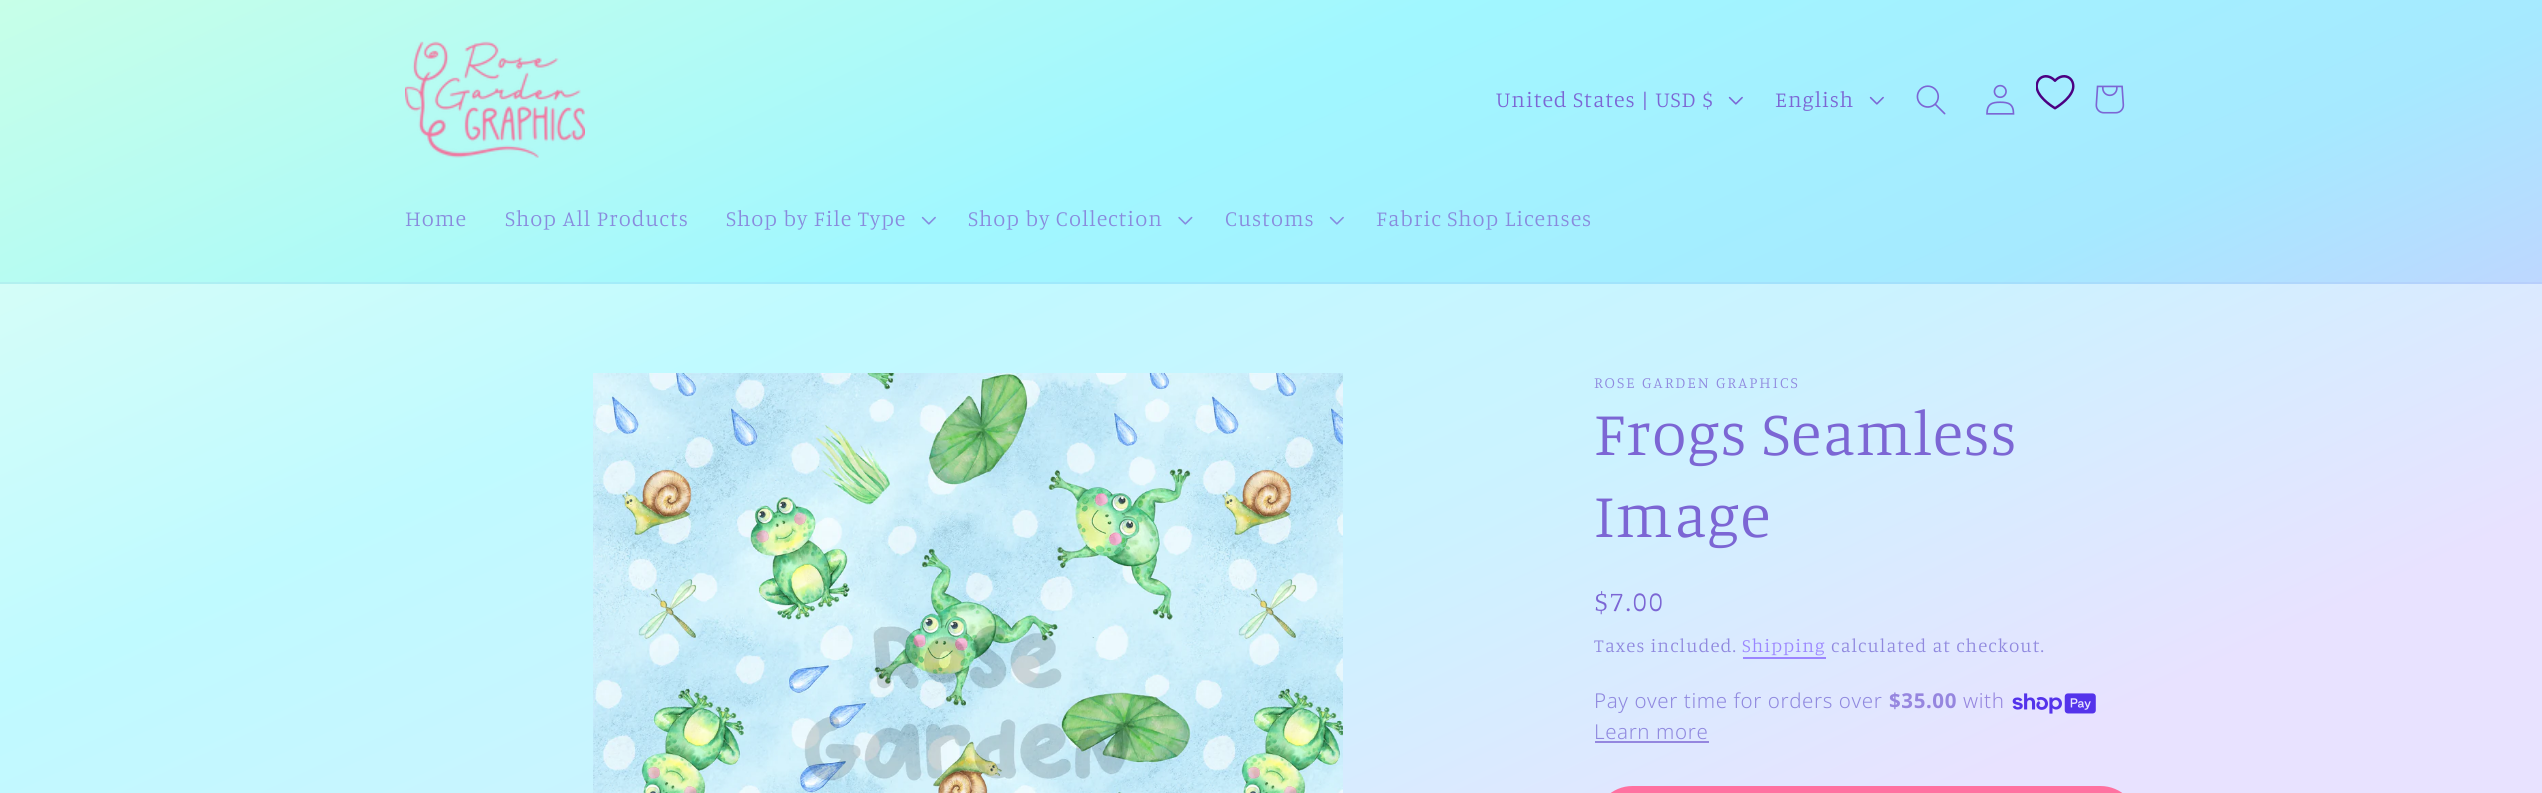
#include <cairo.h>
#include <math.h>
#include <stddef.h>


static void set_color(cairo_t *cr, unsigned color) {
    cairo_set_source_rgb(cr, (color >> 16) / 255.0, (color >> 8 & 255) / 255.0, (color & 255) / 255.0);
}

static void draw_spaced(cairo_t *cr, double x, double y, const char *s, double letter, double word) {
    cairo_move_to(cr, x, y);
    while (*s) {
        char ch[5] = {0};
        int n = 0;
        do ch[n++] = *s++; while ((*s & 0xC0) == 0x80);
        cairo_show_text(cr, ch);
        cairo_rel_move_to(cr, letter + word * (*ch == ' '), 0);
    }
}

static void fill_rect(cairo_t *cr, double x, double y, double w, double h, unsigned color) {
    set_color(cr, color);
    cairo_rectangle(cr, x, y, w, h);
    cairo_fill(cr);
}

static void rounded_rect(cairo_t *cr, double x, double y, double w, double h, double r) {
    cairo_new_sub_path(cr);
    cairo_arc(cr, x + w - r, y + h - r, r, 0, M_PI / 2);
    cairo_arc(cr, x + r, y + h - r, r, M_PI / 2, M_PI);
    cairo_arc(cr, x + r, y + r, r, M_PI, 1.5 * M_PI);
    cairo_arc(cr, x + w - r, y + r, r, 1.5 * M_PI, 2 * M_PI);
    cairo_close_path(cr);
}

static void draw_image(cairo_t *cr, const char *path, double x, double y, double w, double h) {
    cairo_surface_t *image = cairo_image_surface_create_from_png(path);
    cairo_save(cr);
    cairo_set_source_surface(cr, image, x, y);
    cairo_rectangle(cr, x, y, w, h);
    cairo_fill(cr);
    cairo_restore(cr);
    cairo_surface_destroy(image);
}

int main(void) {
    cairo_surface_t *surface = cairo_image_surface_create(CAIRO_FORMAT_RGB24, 2542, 793);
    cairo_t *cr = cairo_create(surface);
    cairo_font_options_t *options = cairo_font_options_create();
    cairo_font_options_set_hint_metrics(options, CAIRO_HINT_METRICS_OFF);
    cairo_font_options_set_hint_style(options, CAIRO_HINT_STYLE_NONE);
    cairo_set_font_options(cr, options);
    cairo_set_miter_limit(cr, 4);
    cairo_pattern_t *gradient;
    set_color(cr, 0xFFFFFF);
    cairo_paint(cr);
    gradient = cairo_pattern_create_linear(1650, 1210, 892, -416);
    cairo_pattern_add_color_stop_rgba(gradient, 0.14, 0.91, 0.886, 1, 1);
    cairo_pattern_add_color_stop_rgba(gradient, 0.39, 0.8, 0.949, 1, 1);
    cairo_pattern_add_color_stop_rgba(gradient, 0.65, 0.753, 0.98, 1, 1);
    cairo_pattern_add_color_stop_rgba(gradient, 1, 0.886, 1, 0.953, 1);
    cairo_set_source(cr, gradient);
    cairo_pattern_destroy(gradient);
    cairo_rectangle(cr, 0, 284, 2542, 509);
    cairo_fill(cr);
    gradient = cairo_pattern_create_linear(1650, 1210, 892, -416);
    cairo_pattern_add_color_stop_rgba(gradient, 0.14, 0.592, 0.522, 0.875, 1);
    cairo_pattern_add_color_stop_rgba(gradient, 0.39, 0.565, 0.537, 0.875, 1);
    cairo_pattern_add_color_stop_rgba(gradient, 0.65, 0.553, 0.545, 0.875, 1);
    cairo_pattern_add_color_stop_rgba(gradient, 1, 0.588, 0.549, 0.863, 1);
    cairo_set_source(cr, gradient);
    cairo_pattern_destroy(gradient);
    cairo_rectangle(cr, 1595, 741, 114, 2);
    cairo_fill(cr);
    gradient = cairo_pattern_create_linear(1650, 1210, 892, -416);
    cairo_pattern_add_color_stop_rgba(gradient, 0.14, 0.824, 0.78, 1, 1);
    cairo_pattern_add_color_stop_rgba(gradient, 0.39, 0.651, 0.914, 1, 1);
    cairo_pattern_add_color_stop_rgba(gradient, 0.66, 0.631, 0.969, 1, 1);
    cairo_pattern_add_color_stop_rgba(gradient, 1, 0.78, 1, 0.91, 1);
    cairo_set_source(cr, gradient);
    cairo_pattern_destroy(gradient);
    cairo_rectangle(cr, 0, 0, 2542, 282);
    cairo_fill(cr);
    gradient = cairo_pattern_create_linear(1650, 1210, 892, -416);
    cairo_pattern_add_color_stop_rgba(gradient, 0.14, 0.796, 0.749, 0.988, 1);
    cairo_pattern_add_color_stop_rgba(gradient, 0.39, 0.639, 0.875, 0.988, 1);
    cairo_pattern_add_color_stop_rgba(gradient, 0.66, 0.62, 0.922, 0.988, 1);
    cairo_pattern_add_color_stop_rgba(gradient, 1, 0.757, 0.953, 0.902, 1);
    cairo_set_source(cr, gradient);
    cairo_pattern_destroy(gradient);
    cairo_rectangle(cr, 0, 282, 2542, 2);
    cairo_fill(cr);
    draw_image(cr, "assets/img1.png", 405, 41, 180, 117);
    cairo_select_font_face(cr, "Manuale Light", CAIRO_FONT_SLANT_NORMAL, CAIRO_FONT_WEIGHT_NORMAL);
    cairo_set_font_size(cr, 22);
    set_color(cr, 0x7C66D4);
    draw_spaced(cr, 1496, 107, "United States | USD $", 0.95, 0);
    draw_image(cr, "assets/img2.png", 1728, 96, 15, 9);
    draw_spaced(cr, 1775, 107, "English", 0.95, 0);
    draw_image(cr, "assets/img3.png", 1869, 96, 15, 9);
    draw_image(cr, "assets/img4.png", 1916, 85, 30, 30);
    draw_image(cr, "assets/img5.png", 1986, 84, 29, 31);
    draw_image(cr, "assets/img6.png", 2036, 75, 39, 35);
    draw_image(cr, "assets/img7.png", 2095, 85, 30, 29);
    set_color(cr, 0x898BDD);
    draw_spaced(cr, 405, 226, "Home", 0.95, 0);
    draw_spaced(cr, 505, 226, "Shop All Products", 0.95, 0);
    draw_spaced(cr, 726, 226, "Shop by File Type", 0.95, 0);
    draw_image(cr, "assets/img8.png", 921, 216, 15, 9);
    draw_spaced(cr, 968, 226, "Shop by Collection", 0.95, 0);
    draw_image(cr, "assets/img9.png", 1178, 216, 15, 9);
    draw_spaced(cr, 1225, 226, "Customs", 0.95, 0);
    draw_image(cr, "assets/img10.png", 1329, 216, 15, 9);
    draw_spaced(cr, 1376, 226, "Fabric Shop Licenses", 0.95, 0);
    draw_image(cr, "assets/img11.png", 593, 373, 750, 420);
    cairo_set_font_size(cr, 15.75);
    set_color(cr, 0x9089DF);
    draw_spaced(cr, 1594, 388, "ROSE GARDEN GRAPHICS", 2, 0);
    cairo_set_font_size(cr, 63);
    set_color(cr, 0x7C66D4);
    draw_spaced(cr, 1594, 455, "Frogs Seamless", 0.95, 0);
    draw_spaced(cr, 1594, 537, "Image", 0.95, 0);
    cairo_set_font_size(cr, 28);
    draw_spaced(cr, 1594, 611, "$7.00", 2, 0);
    cairo_set_font_size(cr, 18.9);
    set_color(cr, 0x9089DF);
    draw_spaced(cr, 1594, 652, "Taxes included.", 1.1, 0);
    set_color(cr, 0x9B86FF);
    draw_spaced(cr, 1742, 652, "Shipping", 1.1, 0);
    fill_rect(cr, 1743, 657, 83, 2, 0x9B86FF);
    set_color(cr, 0x9089DF);
    draw_spaced(cr, 1831, 652, "calculated at checkout.", 1.1, 0);
    cairo_select_font_face(cr, "Noto Sans Light", CAIRO_FONT_SLANT_NORMAL, CAIRO_FONT_WEIGHT_NORMAL);
    cairo_set_font_size(cr, 20.5);
    draw_spaced(cr, 1594, 708, "Pay over time for orders over", 0.6, 0);
    cairo_select_font_face(cr, "Noto Sans", CAIRO_FONT_SLANT_NORMAL, CAIRO_FONT_WEIGHT_BOLD);
    set_color(cr, 0x9686DF);
    draw_spaced(cr, 1889, 708, "$35.00", 0.6, 0);
    cairo_select_font_face(cr, "Noto Sans Light", CAIRO_FONT_SLANT_NORMAL, CAIRO_FONT_WEIGHT_NORMAL);
    draw_spaced(cr, 1963, 708, "with", 0.6, 0);
    draw_image(cr, "assets/img12.png", 2012, 693, 84, 21);
    set_color(cr, 0x9089DF);
    draw_spaced(cr, 1594, 739, "Learn more", 0.6, 0);
    set_color(cr, 0xFF71A0);
    rounded_rect(cr, 1596, 787, 541, 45, 36.5);
    cairo_fill_preserve(cr);
    cairo_stroke(cr);
    cairo_surface_write_to_png(surface, "output.png");
    cairo_font_options_destroy(options);
    cairo_destroy(cr);
    cairo_surface_destroy(surface);
    return 0;
}
